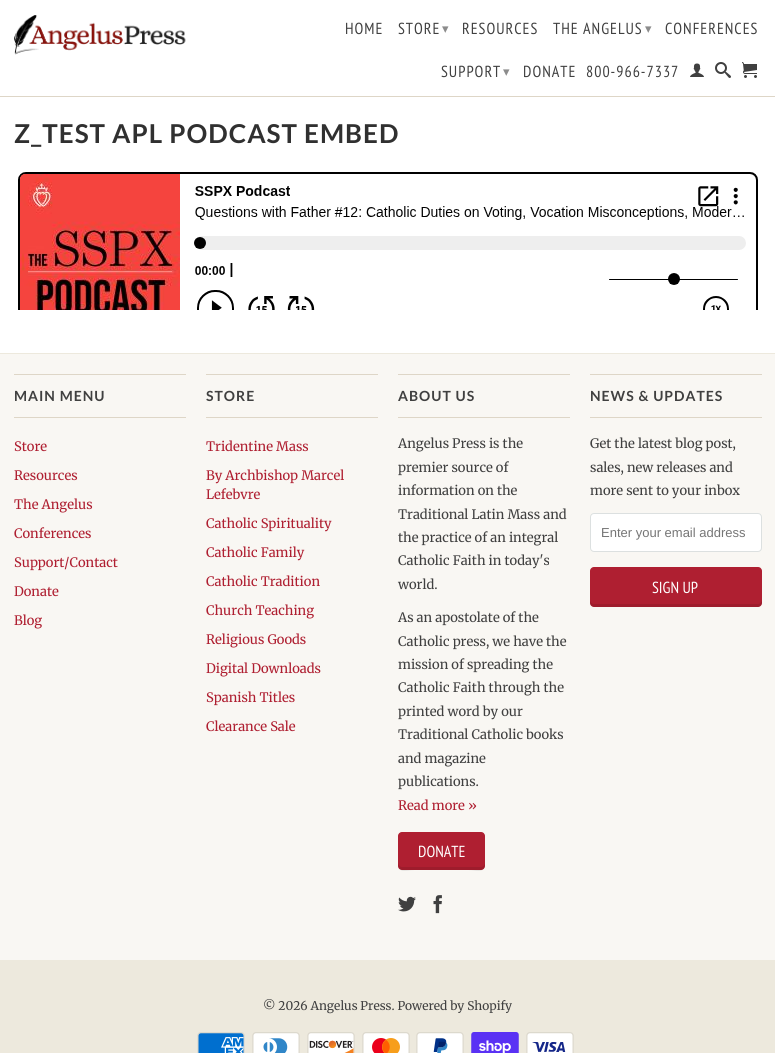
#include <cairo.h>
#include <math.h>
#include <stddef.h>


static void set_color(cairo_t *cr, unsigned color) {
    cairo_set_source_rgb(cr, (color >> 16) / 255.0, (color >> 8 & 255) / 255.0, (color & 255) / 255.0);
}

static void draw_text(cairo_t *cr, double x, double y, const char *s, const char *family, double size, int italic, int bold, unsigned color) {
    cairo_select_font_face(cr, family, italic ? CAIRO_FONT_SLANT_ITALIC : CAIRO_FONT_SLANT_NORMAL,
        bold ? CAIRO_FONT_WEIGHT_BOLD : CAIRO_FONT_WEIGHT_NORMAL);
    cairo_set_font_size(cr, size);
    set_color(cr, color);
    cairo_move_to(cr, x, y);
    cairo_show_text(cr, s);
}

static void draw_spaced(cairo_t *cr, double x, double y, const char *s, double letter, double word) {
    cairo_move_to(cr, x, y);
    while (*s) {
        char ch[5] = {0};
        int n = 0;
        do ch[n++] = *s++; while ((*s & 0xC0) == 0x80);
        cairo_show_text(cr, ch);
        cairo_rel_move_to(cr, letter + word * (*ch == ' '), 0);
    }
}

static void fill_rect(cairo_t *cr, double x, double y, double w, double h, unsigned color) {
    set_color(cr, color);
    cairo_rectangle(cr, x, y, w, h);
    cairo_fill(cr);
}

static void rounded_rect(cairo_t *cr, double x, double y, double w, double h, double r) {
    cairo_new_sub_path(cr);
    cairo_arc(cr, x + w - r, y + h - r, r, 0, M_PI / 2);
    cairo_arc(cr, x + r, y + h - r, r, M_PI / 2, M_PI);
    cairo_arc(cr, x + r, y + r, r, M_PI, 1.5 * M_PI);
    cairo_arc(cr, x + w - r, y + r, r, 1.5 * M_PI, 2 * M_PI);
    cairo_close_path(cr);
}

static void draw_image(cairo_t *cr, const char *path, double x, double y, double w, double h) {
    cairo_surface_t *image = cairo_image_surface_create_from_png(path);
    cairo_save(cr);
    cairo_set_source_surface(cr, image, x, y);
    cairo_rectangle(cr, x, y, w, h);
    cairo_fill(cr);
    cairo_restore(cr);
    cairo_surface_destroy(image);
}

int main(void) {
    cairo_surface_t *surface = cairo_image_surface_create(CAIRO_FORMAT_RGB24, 775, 1053);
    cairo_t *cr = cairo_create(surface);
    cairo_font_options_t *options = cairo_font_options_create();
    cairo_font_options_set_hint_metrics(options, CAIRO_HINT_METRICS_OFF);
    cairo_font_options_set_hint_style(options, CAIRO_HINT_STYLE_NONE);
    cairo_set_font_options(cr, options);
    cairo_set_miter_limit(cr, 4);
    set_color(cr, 0xFFFFFF);
    cairo_paint(cr);
    fill_rect(cr, 0, 96, 775, 1, 0xDED6C7);
    draw_image(cr, "assets/img1.png", 14, 15, 172, 40);
    cairo_select_font_face(cr, "PT Sans Narrow", CAIRO_FONT_SLANT_NORMAL, CAIRO_FONT_WEIGHT_NORMAL);
    cairo_set_font_size(cr, 16);
    set_color(cr, 0x404040);
    draw_spaced(cr, 345, 34, "HOME", 1, 0);
    draw_spaced(cr, 398, 34, "STORE", 1, 0);
    cairo_select_font_face(cr, "DejaVu Sans", CAIRO_FONT_SLANT_NORMAL, CAIRO_FONT_WEIGHT_NORMAL);
    cairo_set_font_size(cr, 13);
    set_color(cr, 0x8C8C8C);
    draw_spaced(cr, 442, 33, "▾", 1, 0);
    cairo_select_font_face(cr, "PT Sans Narrow", CAIRO_FONT_SLANT_NORMAL, CAIRO_FONT_WEIGHT_NORMAL);
    cairo_set_font_size(cr, 16);
    set_color(cr, 0x404040);
    draw_spaced(cr, 462, 34, "RESOURCES", 1, 0);
    draw_spaced(cr, 553, 34, "THE ANGELUS", 1, 0);
    cairo_select_font_face(cr, "DejaVu Sans", CAIRO_FONT_SLANT_NORMAL, CAIRO_FONT_WEIGHT_NORMAL);
    cairo_set_font_size(cr, 13);
    set_color(cr, 0x8C8C8C);
    draw_spaced(cr, 645, 33, "▾", 1, 0);
    cairo_select_font_face(cr, "PT Sans Narrow", CAIRO_FONT_SLANT_NORMAL, CAIRO_FONT_WEIGHT_NORMAL);
    cairo_set_font_size(cr, 16);
    set_color(cr, 0x404040);
    draw_spaced(cr, 665, 34, "CONFERENCES", 1, 0);
    draw_spaced(cr, 441, 77, "SUPPORT", 1, 0);
    cairo_select_font_face(cr, "DejaVu Sans", CAIRO_FONT_SLANT_NORMAL, CAIRO_FONT_WEIGHT_NORMAL);
    cairo_set_font_size(cr, 13);
    set_color(cr, 0x8C8C8C);
    draw_spaced(cr, 503, 76, "▾", 1, 0);
    cairo_select_font_face(cr, "PT Sans Narrow", CAIRO_FONT_SLANT_NORMAL, CAIRO_FONT_WEIGHT_NORMAL);
    cairo_set_font_size(cr, 16);
    set_color(cr, 0x404040);
    draw_spaced(cr, 523, 77, "DONATE", 1, 0);
    draw_spaced(cr, 586, 77, "800-966-7337", 1, 0);
    draw_image(cr, "assets/img2.png", 690, 63, 14, 14);
    draw_image(cr, "assets/img3.png", 715, 62, 16, 16);
    draw_image(cr, "assets/img4.png", 742, 62, 15, 16);
    cairo_select_font_face(cr, "Lato", CAIRO_FONT_SLANT_NORMAL, CAIRO_FONT_WEIGHT_BOLD);
    cairo_set_font_size(cr, 26);
    set_color(cr, 0x303030);
    draw_spaced(cr, 14, 143, "Z_TEST APL PODCAST EMBED", 1, 0);
    draw_image(cr, "assets/img5.png", 18, 172, 740, 138);
    fill_rect(cr, 0, 354, 775, 606, 0xF9F7F3);
    fill_rect(cr, 0, 353, 775, 1, 0xEDE9DD);
    fill_rect(cr, 14, 374, 172, 1, 0xDED6C7);
    fill_rect(cr, 14, 417, 172, 1, 0xDED6C7);
    cairo_set_font_size(cr, 14);
    set_color(cr, 0x404040);
    draw_spaced(cr, 14, 401, "MAIN MENU", 1, 0);
    draw_text(cr, 14, 451, "Store", "Merriweather", 13, 0, 0, 0xAF1F31);
    draw_text(cr, 14, 480, "Resources", "Merriweather", 13, 0, 0, 0xAF1F31);
    draw_text(cr, 14, 509, "The Angelus", "Merriweather", 13, 0, 0, 0xAF1F31);
    draw_text(cr, 14, 538, "Conferences", "Merriweather", 13, 0, 0, 0xAF1F31);
    draw_text(cr, 14, 567, "Support/Contact", "Merriweather", 13, 0, 0, 0xAF1F31);
    draw_text(cr, 14, 596, "Donate", "Merriweather", 13, 0, 0, 0xAF1F31);
    draw_text(cr, 14, 625, "Blog", "Merriweather", 13, 0, 0, 0xAF1F31);
    fill_rect(cr, 206, 374, 172, 1, 0xDED6C7);
    fill_rect(cr, 206, 417, 172, 1, 0xDED6C7);
    cairo_select_font_face(cr, "Lato", CAIRO_FONT_SLANT_NORMAL, CAIRO_FONT_WEIGHT_BOLD);
    cairo_set_font_size(cr, 14);
    set_color(cr, 0x404040);
    draw_spaced(cr, 206, 401, "STORE", 1, 0);
    draw_text(cr, 206, 451, "Tridentine Mass", "Merriweather", 13, 0, 0, 0xAF1F31);
    draw_text(cr, 206, 480, "By Archbishop Marcel", "Merriweather", 13, 0, 0, 0xAF1F31);
    draw_text(cr, 206, 499, "Lefebvre", "Merriweather", 13, 0, 0, 0xAF1F31);
    draw_text(cr, 206, 528, "Catholic Spirituality", "Merriweather", 13, 0, 0, 0xAF1F31);
    draw_text(cr, 206, 557, "Catholic Family", "Merriweather", 13, 0, 0, 0xAF1F31);
    draw_text(cr, 206, 586, "Catholic Tradition", "Merriweather", 13, 0, 0, 0xAF1F31);
    draw_text(cr, 206, 615, "Church Teaching", "Merriweather", 13, 0, 0, 0xAF1F31);
    draw_text(cr, 206, 644, "Religious Goods", "Merriweather", 13, 0, 0, 0xAF1F31);
    draw_text(cr, 206, 673, "Digital Downloads", "Merriweather", 13, 0, 0, 0xAF1F31);
    draw_text(cr, 206, 702, "Spanish Titles", "Merriweather", 13, 0, 0, 0xAF1F31);
    draw_text(cr, 206, 731, "Clearance Sale", "Merriweather", 13, 0, 0, 0xAF1F31);
    fill_rect(cr, 398, 374, 172, 1, 0xDED6C7);
    fill_rect(cr, 398, 417, 172, 1, 0xDED6C7);
    cairo_select_font_face(cr, "Lato", CAIRO_FONT_SLANT_NORMAL, CAIRO_FONT_WEIGHT_BOLD);
    cairo_set_font_size(cr, 14);
    set_color(cr, 0x404040);
    draw_spaced(cr, 398, 401, "ABOUT US", 1, 0);
    draw_text(cr, 398, 448, "Angelus Press is the", "Merriweather", 13, 0, 0, 0x404040);
    draw_text(cr, 398, 472, "premier source of", "Merriweather", 13, 0, 0, 0x404040);
    draw_text(cr, 398, 495, "information on the", "Merriweather", 13, 0, 0, 0x404040);
    draw_text(cr, 398, 519, "Traditional Latin Mass and", "Merriweather", 13, 0, 0, 0x404040);
    draw_text(cr, 398, 542, "the practice of an integral", "Merriweather", 13, 0, 0, 0x404040);
    draw_text(cr, 398, 565, "Catholic Faith in today's", "Merriweather", 13, 0, 0, 0x404040);
    draw_text(cr, 398, 589, "world.", "Merriweather", 13, 0, 0, 0x404040);
    draw_text(cr, 398, 622, "As an apostolate of the", "Merriweather", 13, 0, 0, 0x404040);
    draw_text(cr, 398, 646, "Catholic press, we have the", "Merriweather", 13, 0, 0, 0x404040);
    draw_text(cr, 398, 669, "mission of spreading the", "Merriweather", 13, 0, 0, 0x404040);
    draw_text(cr, 398, 692, "Catholic Faith through the", "Merriweather", 13, 0, 0, 0x404040);
    draw_text(cr, 398, 716, "printed word by our", "Merriweather", 13, 0, 0, 0x404040);
    draw_text(cr, 398, 739, "Traditional Catholic books", "Merriweather", 13, 0, 0, 0x404040);
    draw_text(cr, 398, 763, "and magazine", "Merriweather", 13, 0, 0, 0x404040);
    draw_text(cr, 398, 786, "publications.", "Merriweather", 13, 0, 0, 0x404040);
    draw_text(cr, 398, 810, "Read more »", "Merriweather", 13, 0, 0, 0xAF1F31);
    rounded_rect(cr, 398, 832, 87, 38, 4);
    cairo_fill(cr);
    cairo_set_source_rgba(cr, 0, 0, 0, 0.1);
    cairo_new_path(cr);
    cairo_move_to(cr, 398, 863);
    cairo_curve_to(cr, 398, 874, 405, 870, 415, 870);
    cairo_line_to(cr, 468, 870);
    cairo_curve_to(cr, 478, 870, 485, 874, 485, 863);
    cairo_curve_to(cr, 485, 865, 483, 867, 481, 867);
    cairo_line_to(cr, 402, 867);
    cairo_curve_to(cr, 400, 867, 398, 865, 398, 863);
    cairo_close_path(cr);
    cairo_fill(cr);
    draw_text(cr, 418, 857, "DONATE", "PT Sans Narrow", 16, 0, 0, 0xFFFFFF);
    draw_image(cr, "assets/img6.png", 398, 896, 18, 16);
    draw_image(cr, "assets/img7.png", 433, 895, 9, 19);
    fill_rect(cr, 590, 374, 172, 1, 0xDED6C7);
    fill_rect(cr, 590, 417, 172, 1, 0xDED6C7);
    cairo_select_font_face(cr, "Lato", CAIRO_FONT_SLANT_NORMAL, CAIRO_FONT_WEIGHT_BOLD);
    cairo_set_font_size(cr, 14);
    set_color(cr, 0x404040);
    draw_spaced(cr, 590, 401, "NEWS & UPDATES", 1, 0);
    draw_text(cr, 590, 448, "Get the latest blog post,", "Merriweather", 13, 0, 0, 0x404040);
    draw_text(cr, 590, 472, "sales, new releases and", "Merriweather", 13, 0, 0, 0x404040);
    draw_text(cr, 590, 495, "more sent to your inbox", "Merriweather", 13, 0, 0, 0x404040);
    set_color(cr, 0xFFFFFF);
    rounded_rect(cr, 590.5, 513.5, 171, 38, 3.5);
    cairo_fill_preserve(cr);
    set_color(cr, 0xDCE0E0);
    cairo_set_line_width(cr, 1);
    cairo_stroke(cr);
    draw_text(cr, 601, 537, "Enter your email address", "Liberation Sans", 13, 0, 0, 0x757575);
    set_color(cr, 0xAF1F31);
    rounded_rect(cr, 590, 567, 172, 40, 4);
    cairo_fill(cr);
    cairo_set_source_rgba(cr, 0, 0, 0, 0.1);
    cairo_new_path(cr);
    cairo_move_to(cr, 590, 600);
    cairo_line_to(cr, 590, 603);
    cairo_curve_to(cr, 590, 605, 592, 607, 594, 607);
    cairo_line_to(cr, 758, 607);
    cairo_curve_to(cr, 760, 607, 762, 605, 762, 603);
    cairo_line_to(cr, 762, 600);
    cairo_curve_to(cr, 762, 602, 760, 604, 758, 604);
    cairo_line_to(cr, 594, 604);
    cairo_curve_to(cr, 592, 604, 590, 602, 590, 600);
    cairo_close_path(cr);
    cairo_fill(cr);
    draw_text(cr, 652, 593, "SIGN UP", "PT Sans Narrow", 16, 0, 0, 0xFFFFFF);
    fill_rect(cr, 0, 960, 775, 93, 0xEDE9DD);
    draw_text(cr, 263, 1010, "© 2026 Angelus Press. Powered by Shopify", "Merriweather", 12, 0, 0, 0x404040);
    draw_image(cr, "assets/img8.png", 197, 1032, 48, 21);
    draw_image(cr, "assets/img9.png", 252, 1032, 48, 21);
    draw_image(cr, "assets/img10.png", 307, 1032, 48, 21);
    draw_image(cr, "assets/img11.png", 362, 1032, 48, 21);
    draw_image(cr, "assets/img12.png", 416, 1032, 48, 21);
    draw_image(cr, "assets/img13.png", 471, 1032, 48, 21);
    draw_image(cr, "assets/img14.png", 526, 1032, 48, 21);
    cairo_surface_write_to_png(surface, "output.png");
    cairo_font_options_destroy(options);
    cairo_destroy(cr);
    cairo_surface_destroy(surface);
    return 0;
}
